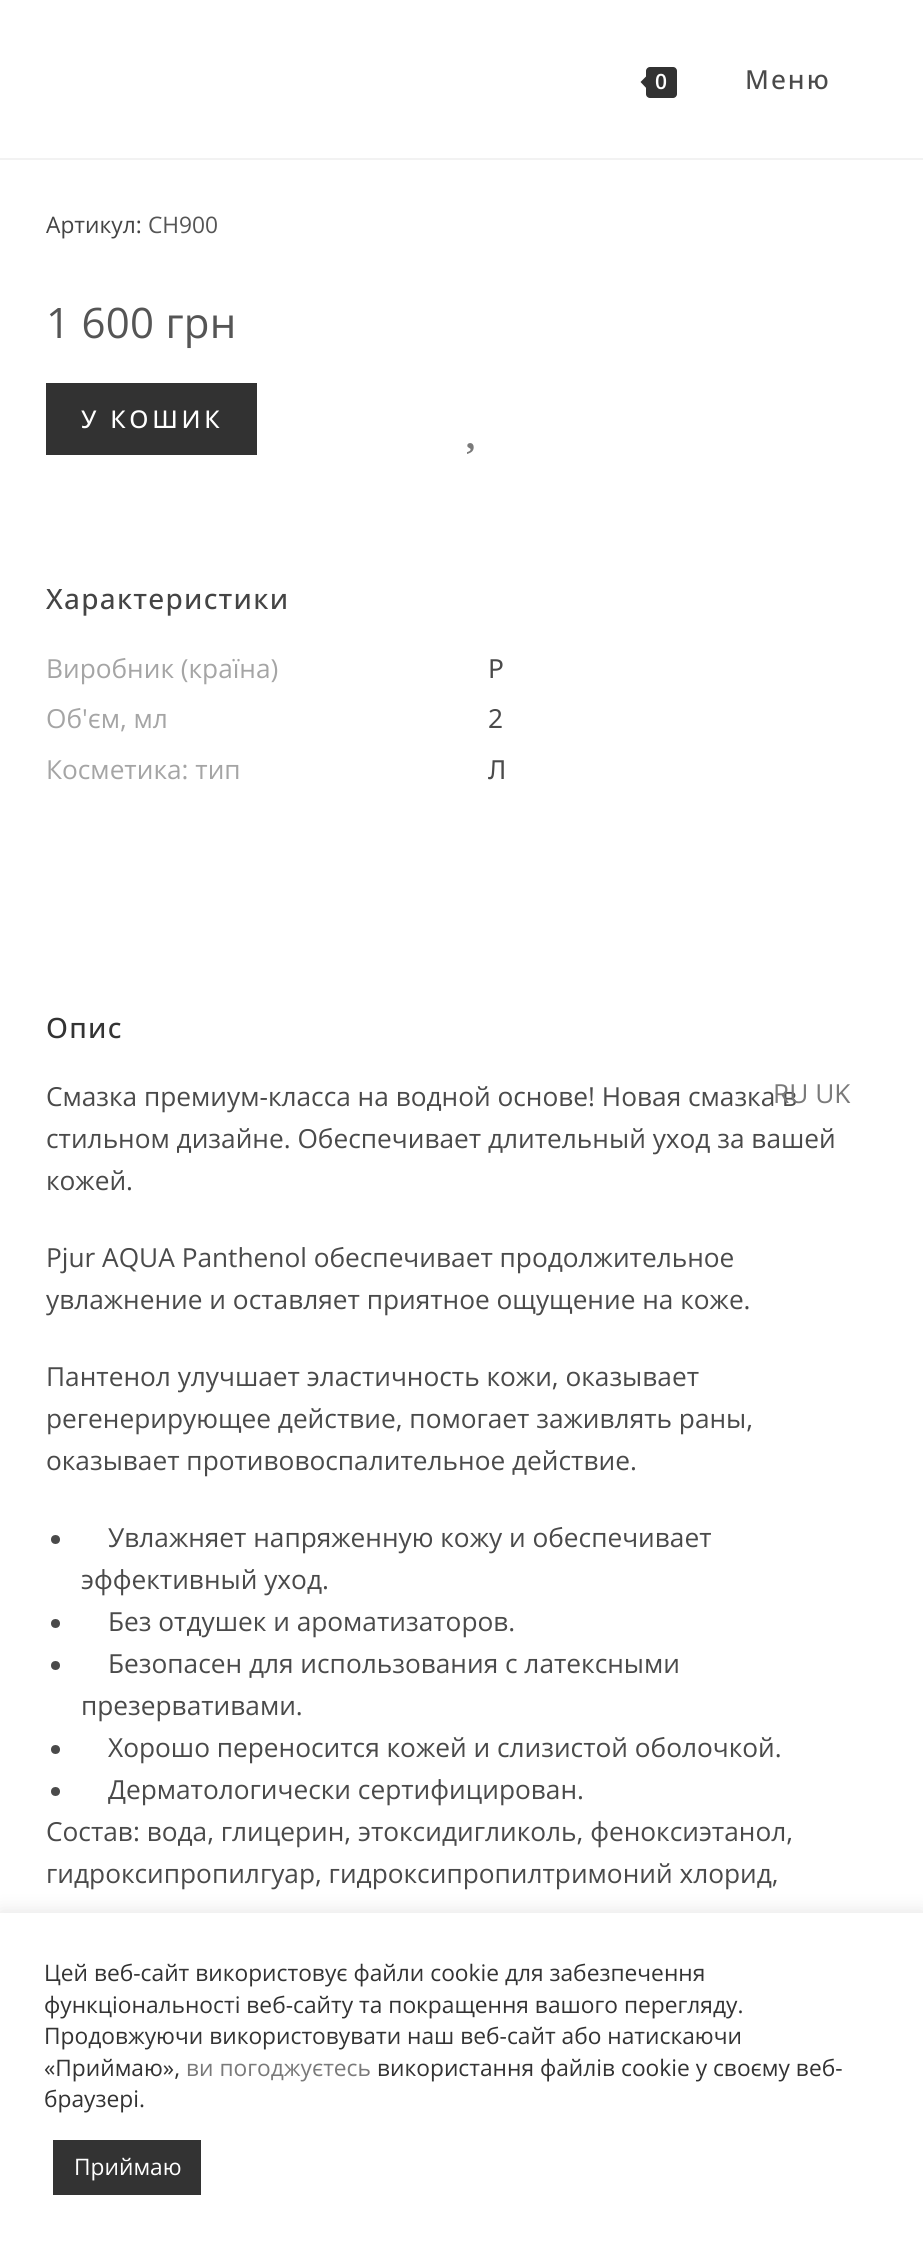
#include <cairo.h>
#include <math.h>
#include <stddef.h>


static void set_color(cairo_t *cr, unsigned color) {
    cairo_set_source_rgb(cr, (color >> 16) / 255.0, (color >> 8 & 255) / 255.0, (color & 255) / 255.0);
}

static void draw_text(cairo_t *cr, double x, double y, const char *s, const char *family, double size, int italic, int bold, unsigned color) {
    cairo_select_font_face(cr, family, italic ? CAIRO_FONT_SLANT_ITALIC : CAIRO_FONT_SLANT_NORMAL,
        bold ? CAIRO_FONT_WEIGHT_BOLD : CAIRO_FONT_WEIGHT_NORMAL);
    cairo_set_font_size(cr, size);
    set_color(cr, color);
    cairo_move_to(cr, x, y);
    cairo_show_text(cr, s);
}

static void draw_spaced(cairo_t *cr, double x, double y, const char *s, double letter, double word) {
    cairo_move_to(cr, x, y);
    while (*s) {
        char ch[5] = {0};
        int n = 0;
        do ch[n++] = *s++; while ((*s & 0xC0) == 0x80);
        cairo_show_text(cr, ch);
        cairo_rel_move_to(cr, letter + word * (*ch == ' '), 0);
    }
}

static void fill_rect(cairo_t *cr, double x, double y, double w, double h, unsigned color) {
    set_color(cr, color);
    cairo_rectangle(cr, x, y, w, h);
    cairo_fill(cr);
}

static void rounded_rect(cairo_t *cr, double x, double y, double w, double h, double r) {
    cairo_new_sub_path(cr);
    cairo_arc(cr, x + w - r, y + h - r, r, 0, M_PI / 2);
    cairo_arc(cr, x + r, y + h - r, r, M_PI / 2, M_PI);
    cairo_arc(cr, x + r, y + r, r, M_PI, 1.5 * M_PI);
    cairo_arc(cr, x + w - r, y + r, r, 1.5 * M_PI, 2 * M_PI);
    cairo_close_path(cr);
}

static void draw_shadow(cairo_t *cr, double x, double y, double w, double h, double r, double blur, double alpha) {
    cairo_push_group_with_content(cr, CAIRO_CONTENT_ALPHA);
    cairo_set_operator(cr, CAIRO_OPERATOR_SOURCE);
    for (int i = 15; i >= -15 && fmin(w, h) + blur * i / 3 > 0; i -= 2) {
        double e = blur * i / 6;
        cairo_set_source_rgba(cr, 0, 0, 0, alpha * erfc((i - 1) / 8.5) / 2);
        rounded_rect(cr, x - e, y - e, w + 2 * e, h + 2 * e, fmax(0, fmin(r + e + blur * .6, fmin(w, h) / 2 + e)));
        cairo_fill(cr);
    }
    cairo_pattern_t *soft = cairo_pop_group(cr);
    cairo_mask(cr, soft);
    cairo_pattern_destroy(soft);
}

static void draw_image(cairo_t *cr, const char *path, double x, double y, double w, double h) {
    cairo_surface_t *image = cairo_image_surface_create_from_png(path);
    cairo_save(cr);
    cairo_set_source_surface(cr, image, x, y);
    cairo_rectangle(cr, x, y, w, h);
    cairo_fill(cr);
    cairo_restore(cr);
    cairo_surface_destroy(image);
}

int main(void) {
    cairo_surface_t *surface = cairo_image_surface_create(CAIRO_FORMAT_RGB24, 923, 2247);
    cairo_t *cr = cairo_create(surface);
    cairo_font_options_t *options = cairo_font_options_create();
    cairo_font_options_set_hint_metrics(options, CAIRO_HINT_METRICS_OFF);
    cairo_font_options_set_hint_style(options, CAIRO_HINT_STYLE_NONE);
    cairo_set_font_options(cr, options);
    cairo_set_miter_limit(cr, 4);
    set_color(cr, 0xFFFFFF);
    cairo_paint(cr);
    fill_rect(cr, 0, 158, 923, 2, 0xF2F2F2);
    set_color(cr, 0x323232);
    rounded_rect(cr, 646, 67, 31, 31, 4);
    cairo_fill(cr);
    cairo_new_path(cr);
    cairo_move_to(cr, 649, 73.5);
    cairo_line_to(cr, 649, 91);
    cairo_line_to(cr, 640.5, 82);
    cairo_close_path(cr);
    cairo_fill(cr);
    cairo_select_font_face(cr, "Open Sans SemiBold", CAIRO_FONT_SLANT_NORMAL, CAIRO_FONT_WEIGHT_NORMAL);
    cairo_set_font_size(cr, 21);
    set_color(cr, 0xFFFFFF);
    draw_spaced(cr, 655, 89, "0", 2, 0);
    cairo_select_font_face(cr, "Open Sans Medium", CAIRO_FONT_SLANT_NORMAL, CAIRO_FONT_WEIGHT_NORMAL);
    cairo_set_font_size(cr, 26.25);
    set_color(cr, 0x4A4A4A);
    draw_spaced(cr, 745, 89, "Меню", 2, 0);
    draw_text(cr, 46, 233, "Артикул:", "Open Sans", 22.75, 0, 0, 0x444444);
    draw_text(cr, 148, 233, "CH900", "Open Sans", 22.75, 0, 0, 0x555555);
    cairo_set_font_size(cr, 42);
    draw_spaced(cr, 46, 338, "1 600 грн", 0.25, 0);
    fill_rect(cr, 46, 383, 211, 72, 0x323232);
    cairo_select_font_face(cr, "Open Sans Medium", CAIRO_FONT_SLANT_NORMAL, CAIRO_FONT_WEIGHT_NORMAL);
    cairo_set_font_size(cr, 24.5);
    set_color(cr, 0xFFFFFF);
    draw_spaced(cr, 81, 428, "У КОШИК", 3.75, 0);
    draw_image(cr, "assets/img1.png", 467, 443, 7, 11);
    cairo_set_font_size(cr, 28);
    set_color(cr, 0x444444);
    draw_spaced(cr, 46, 609, "Характеристики", 1.25, 0);
    draw_text(cr, 46, 678, "Виробник (країна)", "Open Sans", 26.25, 0, 0, 0xA5A5A5);
    draw_text(cr, 488, 678, "P", "Noto Sans", 26.25, 0, 0, 0x4A4A4A);
    draw_text(cr, 46, 728, "Об'єм, мл", "Open Sans", 26.25, 0, 0, 0xA5A5A5);
    draw_text(cr, 488, 728, "2", "Noto Sans", 26.25, 0, 0, 0x4A4A4A);
    draw_text(cr, 46, 779, "Косметика: тип", "Open Sans", 26.25, 0, 0, 0xA5A5A5);
    draw_text(cr, 488, 779, "Л", "Noto Sans", 26.25, 0, 0, 0x4A4A4A);
    cairo_select_font_face(cr, "Open Sans Medium", CAIRO_FONT_SLANT_NORMAL, CAIRO_FONT_WEIGHT_NORMAL);
    cairo_set_font_size(cr, 28);
    set_color(cr, 0x333333);
    draw_spaced(cr, 46, 1038, "Опис", 1.25, 0);
    draw_text(cr, 46, 1106, "Смазка премиум-класса на водной основе! Новая смазка в", "Open Sans", 26.25, 0, 0, 0x4A4A4A);
    draw_text(cr, 46, 1148, "стильном дизайне. Обеспечивает длительный уход за вашей", "Open Sans", 26.25, 0, 0, 0x4A4A4A);
    draw_text(cr, 46, 1190, "кожей.", "Open Sans", 26.25, 0, 0, 0x4A4A4A);
    draw_text(cr, 46, 1267, "Pjur AQUA Panthenol обеспечивает продолжительное", "Open Sans", 26.25, 0, 0, 0x4A4A4A);
    draw_text(cr, 46, 1309, "увлажнение и оставляет приятное ощущение на коже.", "Open Sans", 26.25, 0, 0, 0x4A4A4A);
    draw_text(cr, 46, 1386, "Пантенол улучшает эластичность кожи, оказывает", "Open Sans", 26.25, 0, 0, 0x4A4A4A);
    draw_text(cr, 46, 1428, "регенерирующее действие, помогает заживлять раны,", "Open Sans", 26.25, 0, 0, 0x4A4A4A);
    draw_text(cr, 46, 1470, "оказывает противовоспалительное действие.", "Open Sans", 26.25, 0, 0, 0x4A4A4A);
    cairo_new_path(cr);
    cairo_arc(cr, 55.5, 1539.5, 4.5, 0, 2 * M_PI);
    cairo_fill(cr);
    draw_text(cr, 108, 1547, "Увлажняет напряженную кожу и обеспечивает", "Open Sans", 26.25, 0, 0, 0x4A4A4A);
    draw_text(cr, 81, 1589, "эффективный уход.", "Open Sans", 26.25, 0, 0, 0x4A4A4A);
    cairo_new_path(cr);
    cairo_arc(cr, 55.5, 1623.5, 4.5, 0, 2 * M_PI);
    cairo_fill(cr);
    draw_text(cr, 108, 1631, "Без отдушек и ароматизаторов.", "Open Sans", 26.25, 0, 0, 0x4A4A4A);
    cairo_new_path(cr);
    cairo_arc(cr, 55.5, 1665.5, 4.5, 0, 2 * M_PI);
    cairo_fill(cr);
    draw_text(cr, 108, 1673, "Безопасен для использования с латексными", "Open Sans", 26.25, 0, 0, 0x4A4A4A);
    draw_text(cr, 81, 1715, "презервативами.", "Open Sans", 26.25, 0, 0, 0x4A4A4A);
    cairo_new_path(cr);
    cairo_arc(cr, 55.5, 1749.5, 4.5, 0, 2 * M_PI);
    cairo_fill(cr);
    draw_text(cr, 108, 1757, "Хорошо переносится кожей и слизистой оболочкой.", "Open Sans", 26.25, 0, 0, 0x4A4A4A);
    cairo_new_path(cr);
    cairo_arc(cr, 55.5, 1791.5, 4.5, 0, 2 * M_PI);
    cairo_fill(cr);
    draw_text(cr, 108, 1799, "Дерматологически сертифицирован.", "Open Sans", 26.25, 0, 0, 0x4A4A4A);
    draw_text(cr, 46, 1841, "Состав: вода, глицерин, этоксидигликоль, феноксиэтанол,", "Open Sans", 26.25, 0, 0, 0x4A4A4A);
    draw_text(cr, 46, 1883, "гидроксипропилгуар, гидроксипропилтримоний хлорид,", "Open Sans", 26.25, 0, 0, 0x4A4A4A);
    draw_text(cr, 773, 1103, "RU UK", "Open Sans", 26.25, 0, 0, 0x7A7A7A);
    set_color(cr, 0xACABAB);
    draw_shadow(cr, 0, 1911, 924, 334, 0, 9, 0.3);
    fill_rect(cr, 0, 1913, 923, 334, 0xFFFFFF);
    draw_text(cr, 44, 1981, "Цей веб-сайт використовує файли cookie для забезпечення", "Open Sans", 22.75, 0, 0, 0x333333);
    draw_text(cr, 44, 2013, "функціональності веб-сайту та покращення вашого перегляду.", "Open Sans", 22.75, 0, 0, 0x333333);
    draw_text(cr, 44, 2044, "Продовжуючи використовувати наш веб-сайт або натискаючи", "Open Sans", 22.75, 0, 0, 0x333333);
    draw_text(cr, 44, 2076, "«Приймаю»,", "Open Sans", 22.75, 0, 0, 0x333333);
    draw_text(cr, 186, 2076, "ви погоджуєтесь", "Open Sans", 22.75, 0, 0, 0x7A7A7A);
    draw_text(cr, 377, 2076, "використання файлів cookie у своєму веб-", "Open Sans", 22.75, 0, 0, 0x333333);
    draw_text(cr, 44, 2107, "браузері.", "Open Sans", 22.75, 0, 0, 0x333333);
    fill_rect(cr, 53, 2140, 148, 55, 0x333333);
    draw_text(cr, 74, 2175, "Приймаю", "Open Sans", 22.75, 0, 0, 0xFFFFFF);
    cairo_surface_write_to_png(surface, "output.png");
    cairo_font_options_destroy(options);
    cairo_destroy(cr);
    cairo_surface_destroy(surface);
    return 0;
}
